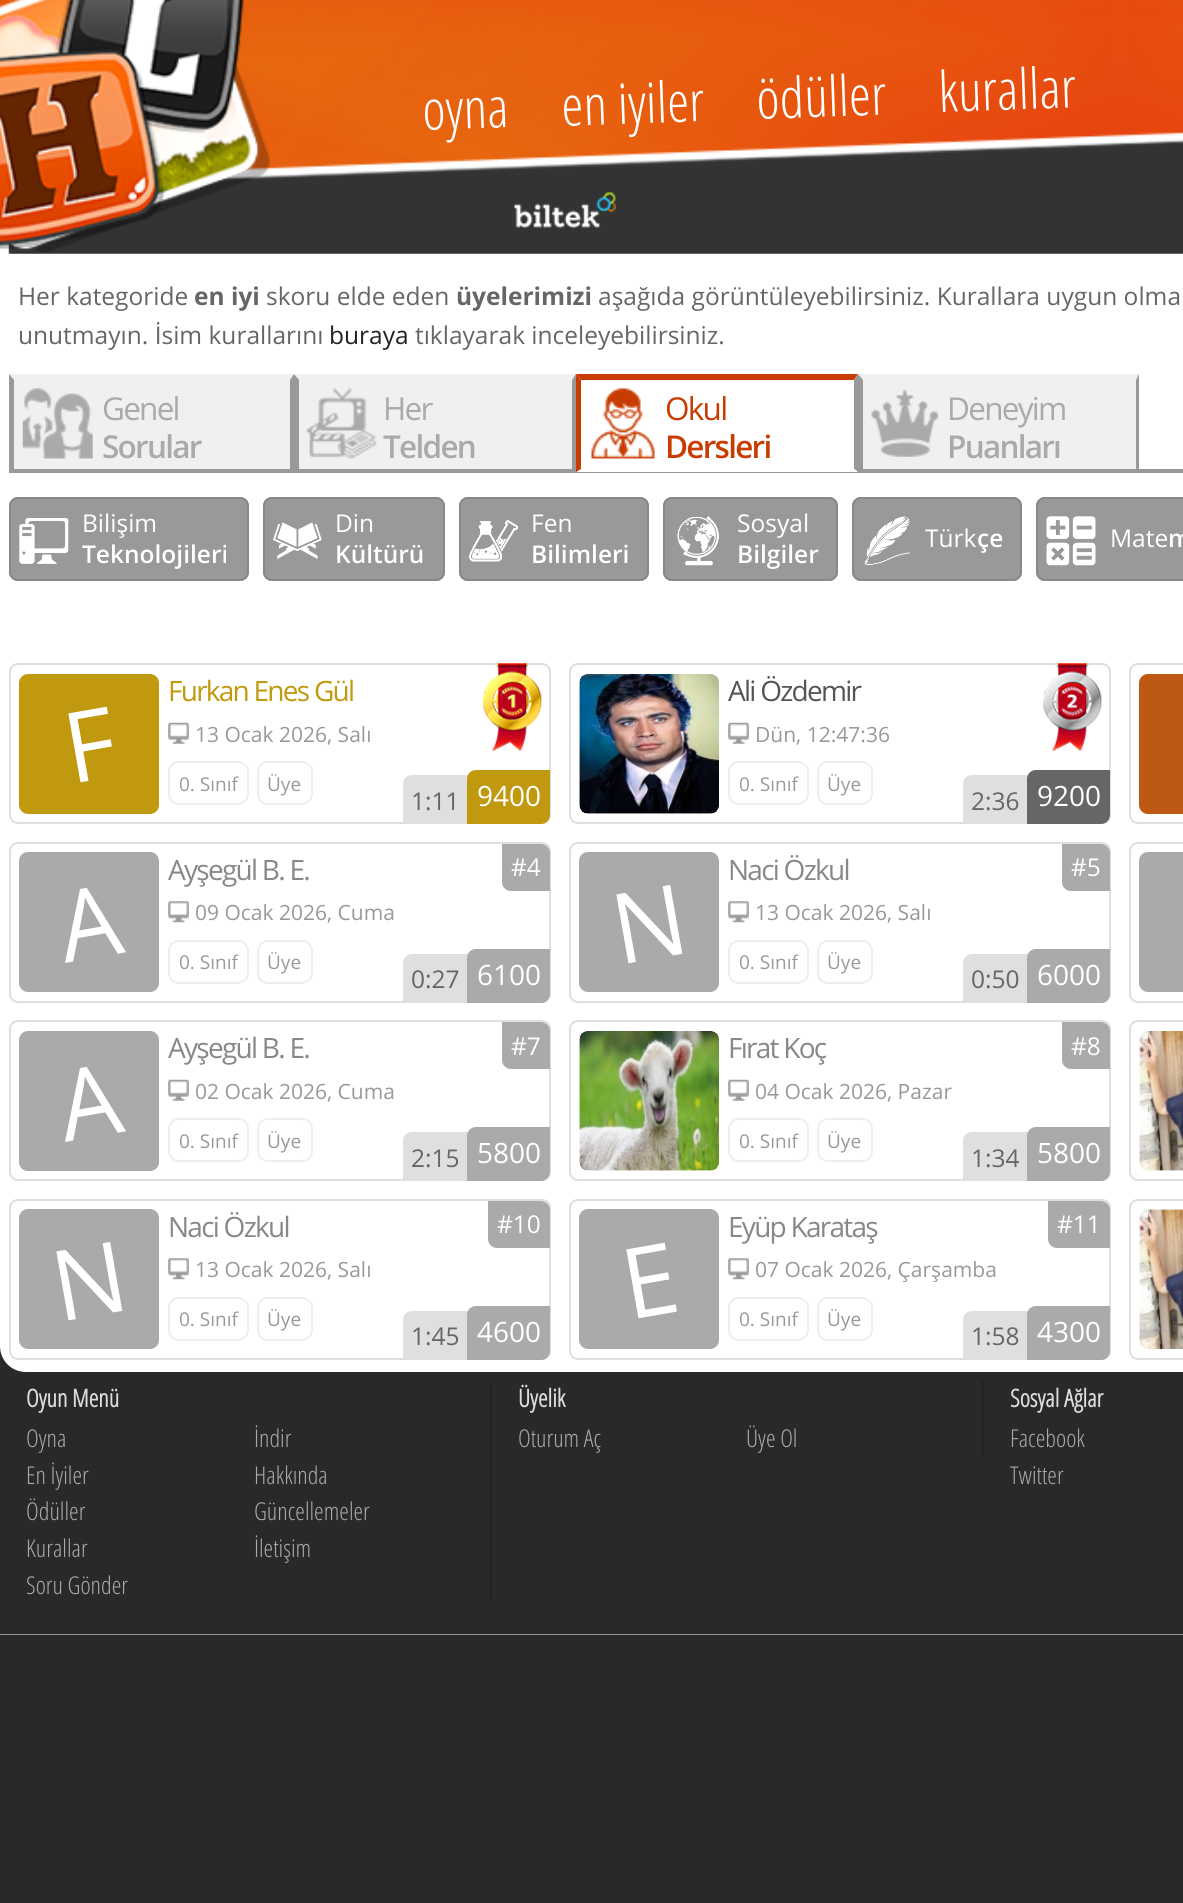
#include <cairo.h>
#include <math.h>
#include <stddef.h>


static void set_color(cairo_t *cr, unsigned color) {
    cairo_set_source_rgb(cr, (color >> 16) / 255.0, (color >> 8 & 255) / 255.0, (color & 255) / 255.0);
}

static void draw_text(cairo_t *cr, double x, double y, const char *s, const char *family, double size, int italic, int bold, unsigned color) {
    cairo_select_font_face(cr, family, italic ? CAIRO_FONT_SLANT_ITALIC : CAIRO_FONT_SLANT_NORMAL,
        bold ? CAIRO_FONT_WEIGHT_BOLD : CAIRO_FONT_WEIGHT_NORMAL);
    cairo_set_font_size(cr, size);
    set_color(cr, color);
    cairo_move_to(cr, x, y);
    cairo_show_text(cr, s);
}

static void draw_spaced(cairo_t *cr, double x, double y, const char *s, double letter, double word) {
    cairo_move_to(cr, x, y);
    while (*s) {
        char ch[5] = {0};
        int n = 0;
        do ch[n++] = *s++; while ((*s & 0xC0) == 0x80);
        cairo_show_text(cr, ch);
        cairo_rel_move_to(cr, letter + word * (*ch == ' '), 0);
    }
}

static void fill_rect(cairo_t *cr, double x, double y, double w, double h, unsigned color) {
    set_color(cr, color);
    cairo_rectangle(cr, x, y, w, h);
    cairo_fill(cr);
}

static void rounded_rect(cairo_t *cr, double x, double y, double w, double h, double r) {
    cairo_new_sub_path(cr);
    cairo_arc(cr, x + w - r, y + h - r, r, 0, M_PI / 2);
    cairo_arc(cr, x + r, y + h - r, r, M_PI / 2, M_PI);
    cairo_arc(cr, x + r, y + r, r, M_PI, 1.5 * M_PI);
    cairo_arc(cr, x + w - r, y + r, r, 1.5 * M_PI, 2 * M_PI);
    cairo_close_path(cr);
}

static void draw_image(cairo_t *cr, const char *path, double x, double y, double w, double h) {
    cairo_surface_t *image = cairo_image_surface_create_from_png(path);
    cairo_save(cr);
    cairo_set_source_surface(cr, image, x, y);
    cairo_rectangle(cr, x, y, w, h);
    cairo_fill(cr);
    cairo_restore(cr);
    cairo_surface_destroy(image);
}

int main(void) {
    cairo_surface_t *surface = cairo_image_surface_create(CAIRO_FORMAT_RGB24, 1183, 1903);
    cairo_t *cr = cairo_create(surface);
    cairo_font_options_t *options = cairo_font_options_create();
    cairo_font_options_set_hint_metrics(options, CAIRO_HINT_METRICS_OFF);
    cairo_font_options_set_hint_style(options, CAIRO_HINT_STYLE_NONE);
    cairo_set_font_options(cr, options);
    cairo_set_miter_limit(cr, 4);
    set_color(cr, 0x292929);
    cairo_paint(cr);
    fill_rect(cr, 0, 1634, 1183, 1, 0xFFFFFF);
    draw_image(cr, "assets/img1.png", 0, 0, 1183, 171);
    draw_image(cr, "assets/img2.png", 0, 131, 1183, 128);
    cairo_save(cr);
    cairo_translate(cr, 423, 130);
    cairo_rotate(cr, -2 * M_PI / 180);
    draw_text(cr, 0, 0, "oyna", "Open Sans Light", 56, 0, 0, 0xFFFFFF);
    cairo_restore(cr);
    draw_image(cr, "assets/img4.png", 8, 139, 1175, 115);
    draw_image(cr, "assets/img3.png", 0, 0, 270, 252);
    cairo_save(cr);
    cairo_translate(cr, 562, 126);
    cairo_rotate(cr, -2 * M_PI / 180);
    draw_text(cr, 0, 0, "en iyiler", "Open Sans Light", 56, 0, 0, 0xFFFFFF);
    cairo_restore(cr);
    cairo_save(cr);
    cairo_translate(cr, 757, 119);
    cairo_rotate(cr, -2 * M_PI / 180);
    draw_text(cr, 0, 0, "ödüller", "Open Sans Light", 56, 0, 0, 0xFFFFFF);
    cairo_restore(cr);
    cairo_save(cr);
    cairo_translate(cr, 939, 112);
    cairo_rotate(cr, -2 * M_PI / 180);
    draw_text(cr, 0, 0, "kurallar", "Open Sans Light", 56, 0, 0, 0xFFFFFF);
    cairo_restore(cr);
    draw_image(cr, "assets/img5.png", 514, 192, 102, 36);
    draw_image(cr, "assets/img24.png", 0, 1346, 1183, 289);
    set_color(cr, 0xFFFFFF);
    cairo_new_path(cr);
    cairo_move_to(cr, 0, 259);
    cairo_line_to(cr, 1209, 259);
    cairo_line_to(cr, 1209, 1346);
    cairo_curve_to(cr, 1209, 1360.5, 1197.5, 1372, 1183, 1372);
    cairo_line_to(cr, 26, 1372);
    cairo_curve_to(cr, 11.5, 1372, 0, 1360.5, 0, 1346);
    cairo_close_path(cr);
    cairo_fill(cr);
    draw_text(cr, 18, 305, "Her kategoride", "Open Sans", 24.5, 0, 0, 0x666666);
    draw_text(cr, 194, 305, "en iyi", "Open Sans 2", 24.5, 0, 1, 0x666666);
    draw_text(cr, 266, 305, "skoru elde eden", "Open Sans", 24.5, 0, 0, 0x666666);
    draw_text(cr, 456, 305, "üyelerimizi", "Open Sans 2", 24.5, 0, 1, 0x666666);
    draw_text(cr, 598, 305, "aşağıda görüntüleyebilirsiniz. Kurallara uygun olma", "Open Sans", 24.5, 0, 0, 0x666666);
    draw_text(cr, 18, 344, "unutmayın. İsim kurallarını", "Open Sans", 24.5, 0, 0, 0x666666);
    draw_text(cr, 329, 344, "buraya", "Open Sans", 24.5, 0, 0, 0x222222);
    draw_text(cr, 415, 344, "tıklayarak inceleyebilirsiniz.", "Open Sans", 24.5, 0, 0, 0x666666);
    fill_rect(cr, 14, 380, 276, 89, 0xF0F0F0);
    draw_image(cr, "assets/img6.png", 22, 388, 71, 71);
    cairo_new_path(cr);
    cairo_move_to(cr, 9, 374);
    cairo_line_to(cr, 294, 374);
    cairo_line_to(cr, 290, 380);
    cairo_line_to(cr, 14, 380);
    cairo_close_path(cr);
    cairo_fill(cr);
    fill_rect(cr, 9, 469, 1174, 4, 0x999999);
    cairo_new_path(cr);
    cairo_move_to(cr, 294, 374);
    cairo_line_to(cr, 294, 472);
    cairo_line_to(cr, 290, 469);
    cairo_line_to(cr, 290, 380);
    cairo_close_path(cr);
    cairo_fill(cr);
    cairo_new_path(cr);
    cairo_move_to(cr, 9, 472);
    cairo_line_to(cr, 9, 374);
    cairo_line_to(cr, 14, 380);
    cairo_line_to(cr, 14, 469);
    cairo_close_path(cr);
    cairo_fill(cr);
    cairo_set_font_size(cr, 31.5);
    set_color(cr, 0xAAAAAA);
    draw_spaced(cr, 102, 420, "Genel", -1.75, 0);
    cairo_select_font_face(cr, "Open Sans SemiBold", CAIRO_FONT_SLANT_NORMAL, CAIRO_FONT_WEIGHT_NORMAL);
    draw_spaced(cr, 102, 458, "Sorular", -1.75, 0);
    fill_rect(cr, 299, 380, 273, 89, 0xF0F0F0);
    draw_image(cr, "assets/img7.png", 306, 388, 71, 71);
    cairo_new_path(cr);
    cairo_move_to(cr, 294, 374);
    cairo_line_to(cr, 576, 374);
    cairo_line_to(cr, 572, 380);
    cairo_line_to(cr, 299, 380);
    cairo_close_path(cr);
    cairo_fill(cr);
    set_color(cr, 0x999999);
    cairo_new_path(cr);
    cairo_move_to(cr, 576, 374);
    cairo_line_to(cr, 576, 472);
    cairo_line_to(cr, 572, 469);
    cairo_line_to(cr, 572, 380);
    cairo_close_path(cr);
    cairo_fill(cr);
    cairo_new_path(cr);
    cairo_move_to(cr, 294, 472);
    cairo_line_to(cr, 294, 374);
    cairo_line_to(cr, 299, 380);
    cairo_line_to(cr, 299, 469);
    cairo_close_path(cr);
    cairo_fill(cr);
    cairo_select_font_face(cr, "Open Sans", CAIRO_FONT_SLANT_NORMAL, CAIRO_FONT_WEIGHT_NORMAL);
    set_color(cr, 0xAAAAAA);
    draw_spaced(cr, 383, 420, "Her", -1.75, 0);
    cairo_select_font_face(cr, "Open Sans SemiBold", CAIRO_FONT_SLANT_NORMAL, CAIRO_FONT_WEIGHT_NORMAL);
    draw_spaced(cr, 383, 458, "Telden", -1.75, 0);
    fill_rect(cr, 576, 469, 282, 2, 0xFFFFFF);
    draw_image(cr, "assets/img8.png", 591, 388, 64, 71);
    set_color(cr, 0xC83C01);
    cairo_new_path(cr);
    cairo_move_to(cr, 576, 374);
    cairo_line_to(cr, 858, 374);
    cairo_line_to(cr, 854, 380);
    cairo_line_to(cr, 581, 380);
    cairo_close_path(cr);
    cairo_fill(cr);
    set_color(cr, 0x999999);
    cairo_new_path(cr);
    cairo_move_to(cr, 858, 374);
    cairo_line_to(cr, 858, 472);
    cairo_line_to(cr, 854, 469);
    cairo_line_to(cr, 854, 380);
    cairo_close_path(cr);
    cairo_fill(cr);
    set_color(cr, 0xFFFFFF);
    cairo_new_path(cr);
    cairo_move_to(cr, 858, 472);
    cairo_line_to(cr, 576, 472);
    cairo_line_to(cr, 581, 469);
    cairo_line_to(cr, 854, 469);
    cairo_close_path(cr);
    cairo_fill(cr);
    set_color(cr, 0xC83C01);
    cairo_new_path(cr);
    cairo_move_to(cr, 576, 472);
    cairo_line_to(cr, 576, 374);
    cairo_line_to(cr, 581, 380);
    cairo_line_to(cr, 581, 469);
    cairo_close_path(cr);
    cairo_fill(cr);
    cairo_select_font_face(cr, "Open Sans", CAIRO_FONT_SLANT_NORMAL, CAIRO_FONT_WEIGHT_NORMAL);
    draw_spaced(cr, 665, 420, "Okul", -1.75, 0);
    cairo_select_font_face(cr, "Open Sans SemiBold", CAIRO_FONT_SLANT_NORMAL, CAIRO_FONT_WEIGHT_NORMAL);
    draw_spaced(cr, 665, 458, "Dersleri", -1.75, 0);
    fill_rect(cr, 863, 380, 273, 89, 0xF0F0F0);
    draw_image(cr, "assets/img9.png", 871, 390, 67, 67);
    cairo_new_path(cr);
    cairo_move_to(cr, 858, 374);
    cairo_line_to(cr, 1139, 374);
    cairo_line_to(cr, 1136, 380);
    cairo_line_to(cr, 863, 380);
    cairo_close_path(cr);
    cairo_fill(cr);
    set_color(cr, 0x999999);
    cairo_new_path(cr);
    cairo_move_to(cr, 1139, 374);
    cairo_line_to(cr, 1139, 472);
    cairo_line_to(cr, 1136, 469);
    cairo_line_to(cr, 1136, 380);
    cairo_close_path(cr);
    cairo_fill(cr);
    cairo_new_path(cr);
    cairo_move_to(cr, 858, 472);
    cairo_line_to(cr, 858, 374);
    cairo_line_to(cr, 863, 380);
    cairo_line_to(cr, 863, 469);
    cairo_close_path(cr);
    cairo_fill(cr);
    cairo_select_font_face(cr, "Open Sans", CAIRO_FONT_SLANT_NORMAL, CAIRO_FONT_WEIGHT_NORMAL);
    set_color(cr, 0xAAAAAA);
    draw_spaced(cr, 947, 420, "Deneyim", -1.75, 0);
    cairo_select_font_face(cr, "Open Sans SemiBold", CAIRO_FONT_SLANT_NORMAL, CAIRO_FONT_WEIGHT_NORMAL);
    draw_spaced(cr, 947, 458, "Puanları", -1.75, 0);
    set_color(cr, 0x999999);
    rounded_rect(cr, 9, 497, 240, 84, 9);
    cairo_fill(cr);
    draw_image(cr, "assets/img10.png", 19, 518, 50, 46);
    rounded_rect(cr, 10, 498, 238, 82, 8);
    set_color(cr, 0x888888);
    cairo_stroke(cr);
    draw_text(cr, 82, 532, "Bilişim", "Open Sans", 24.5, 0, 0, 0xFFFFFF);
    draw_text(cr, 82, 563, "Teknolojileri", "Open Sans SemiBold", 24.5, 0, 0, 0xFFFFFF);
    set_color(cr, 0x999999);
    rounded_rect(cr, 263, 497, 182, 84, 9);
    cairo_fill(cr);
    draw_image(cr, "assets/img11.png", 273, 522, 49, 38);
    rounded_rect(cr, 264, 498, 180, 82, 8);
    set_color(cr, 0x888888);
    cairo_stroke(cr);
    draw_text(cr, 335, 532, "Din", "Open Sans", 24.5, 0, 0, 0xFFFFFF);
    draw_text(cr, 335, 563, "Kültürü", "Open Sans SemiBold", 24.5, 0, 0, 0xFFFFFF);
    set_color(cr, 0x999999);
    rounded_rect(cr, 459, 497, 190, 84, 9);
    cairo_fill(cr);
    draw_image(cr, "assets/img12.png", 469, 520, 49, 42);
    rounded_rect(cr, 460, 498, 188, 82, 8);
    set_color(cr, 0x888888);
    cairo_stroke(cr);
    draw_text(cr, 531, 532, "Fen", "Open Sans", 24.5, 0, 0, 0xFFFFFF);
    draw_text(cr, 531, 563, "Bilimleri", "Open Sans SemiBold", 24.5, 0, 0, 0xFFFFFF);
    set_color(cr, 0x999999);
    rounded_rect(cr, 663, 497, 175, 84, 9);
    cairo_fill(cr);
    draw_image(cr, "assets/img13.png", 677, 516, 42, 50);
    rounded_rect(cr, 664, 498, 173, 82, 8);
    set_color(cr, 0x888888);
    cairo_stroke(cr);
    draw_text(cr, 737, 532, "Sosyal", "Open Sans", 24.5, 0, 0, 0xFFFFFF);
    draw_text(cr, 737, 563, "Bilgiler", "Open Sans SemiBold", 24.5, 0, 0, 0xFFFFFF);
    set_color(cr, 0x999999);
    rounded_rect(cr, 852, 497, 170, 84, 9);
    cairo_fill(cr);
    draw_image(cr, "assets/img14.png", 864, 516, 46, 50);
    rounded_rect(cr, 853, 498, 168, 82, 8);
    set_color(cr, 0x888888);
    cairo_stroke(cr);
    draw_text(cr, 925, 547, "Türk", "Open Sans", 24.5, 0, 0, 0xFFFFFF);
    draw_text(cr, 977, 547, "çe", "Open Sans SemiBold", 24.5, 0, 0, 0xFFFFFF);
    set_color(cr, 0x999999);
    rounded_rect(cr, 1036, 497, 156, 84, 9);
    cairo_fill(cr);
    draw_image(cr, "assets/img15.png", 1046, 516, 50, 50);
    rounded_rect(cr, 1037, 498, 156, 82, 8);
    set_color(cr, 0x888888);
    cairo_stroke(cr);
    draw_text(cr, 1110, 547, "Mate", "Open Sans", 24.5, 0, 0, 0xFFFFFF);
    draw_text(cr, 1168, 547, "m", "Open Sans SemiBold", 24.5, 0, 0, 0xFFFFFF);
    rounded_rect(cr, 10, 664, 540, 159, 8);
    set_color(cr, 0xDFDFDF);
    cairo_stroke(cr);
    set_color(cr, 0xC1990E);
    rounded_rect(cr, 19, 674, 140, 140, 9);
    cairo_fill(cr);
    cairo_save(cr);
    cairo_translate(cr, 71, 784);
    cairo_rotate(cr, -10 * M_PI / 180);
    draw_text(cr, 0, 0, "F", "Open Sans", 98, 0, 0, 0xFFFFFF);
    cairo_restore(cr);
    cairo_select_font_face(cr, "Open Sans", CAIRO_FONT_SLANT_NORMAL, CAIRO_FONT_WEIGHT_NORMAL);
    cairo_set_font_size(cr, 28);
    set_color(cr, 0xC1990E);
    draw_spaced(cr, 168, 701, "Furkan Enes Gül", -1.75, 0);
    draw_image(cr, "assets/img16.png", 168, 722, 21, 22);
    draw_text(cr, 195, 742, "13 Ocak 2026, Salı", "Open Sans", 21, 0, 0, 0x999999);
    rounded_rect(cr, 169, 762, 79, 42, 10);
    set_color(cr, 0xEEEEEE);
    cairo_stroke(cr);
    draw_text(cr, 179, 791, "0. Sınıf", "Open Sans", 19, 0, 0, 0x999999);
    rounded_rect(cr, 258, 762, 54, 42, 10);
    set_color(cr, 0xEEEEEE);
    cairo_stroke(cr);
    draw_text(cr, 267, 791, "Üye", "Open Sans", 19, 0, 0, 0x999999);
    draw_image(cr, "assets/img17.png", 482, 663, 60, 88);
    set_color(cr, 0xDFDFDF);
    cairo_new_path(cr);
    cairo_move_to(cr, 412, 775);
    cairo_line_to(cr, 476, 775);
    cairo_line_to(cr, 476, 824);
    cairo_line_to(cr, 403, 824);
    cairo_line_to(cr, 403, 784);
    cairo_curve_to(cr, 403, 779, 407, 775, 412, 775);
    cairo_close_path(cr);
    cairo_fill(cr);
    draw_text(cr, 411, 810, "1:11", "Open Sans", 24.5, 0, 0, 0x666666);
    set_color(cr, 0xC1990E);
    cairo_new_path(cr);
    cairo_move_to(cr, 476, 770);
    cairo_line_to(cr, 550, 770);
    cairo_line_to(cr, 550, 815);
    cairo_curve_to(cr, 550, 820, 546, 824, 541, 824);
    cairo_line_to(cr, 467, 824);
    cairo_line_to(cr, 467, 779);
    cairo_curve_to(cr, 467, 774, 471, 770, 476, 770);
    cairo_close_path(cr);
    cairo_fill(cr);
    draw_text(cr, 477, 806, "9400", "Open Sans", 28, 0, 0, 0xFFFFFF);
    rounded_rect(cr, 570, 664, 540, 159, 8);
    set_color(cr, 0xDFDFDF);
    cairo_stroke(cr);
    draw_image(cr, "assets/img18.png", 579, 674, 140, 140);
    set_color(cr, 0x555555);
    draw_spaced(cr, 728, 701, "Ali Özdemir", -1.75, 0);
    draw_image(cr, "assets/img16.png", 728, 722, 21, 22);
    draw_text(cr, 755, 742, "Dün, 12:47:36", "Open Sans", 21, 0, 0, 0x999999);
    rounded_rect(cr, 729, 762, 79, 42, 10);
    set_color(cr, 0xEEEEEE);
    cairo_stroke(cr);
    draw_text(cr, 739, 791, "0. Sınıf", "Open Sans", 19, 0, 0, 0x999999);
    rounded_rect(cr, 818, 762, 54, 42, 10);
    set_color(cr, 0xEEEEEE);
    cairo_stroke(cr);
    draw_text(cr, 827, 791, "Üye", "Open Sans", 19, 0, 0, 0x999999);
    draw_image(cr, "assets/img19.png", 1043, 663, 59, 88);
    set_color(cr, 0xDFDFDF);
    cairo_new_path(cr);
    cairo_move_to(cr, 972, 775);
    cairo_line_to(cr, 1036, 775);
    cairo_line_to(cr, 1036, 824);
    cairo_line_to(cr, 963, 824);
    cairo_line_to(cr, 963, 784);
    cairo_curve_to(cr, 963, 779, 967, 775, 972, 775);
    cairo_close_path(cr);
    cairo_fill(cr);
    draw_text(cr, 971, 810, "2:36", "Open Sans", 24.5, 0, 0, 0x666666);
    cairo_new_path(cr);
    cairo_move_to(cr, 1036, 770);
    cairo_line_to(cr, 1110, 770);
    cairo_line_to(cr, 1110, 815);
    cairo_curve_to(cr, 1110, 820, 1106, 824, 1101, 824);
    cairo_line_to(cr, 1027, 824);
    cairo_line_to(cr, 1027, 779);
    cairo_curve_to(cr, 1027, 774, 1031, 770, 1036, 770);
    cairo_close_path(cr);
    cairo_fill(cr);
    draw_text(cr, 1037, 806, "9200", "Open Sans", 28, 0, 0, 0xFFFFFF);
    rounded_rect(cr, 1130, 664, 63, 159, 8);
    set_color(cr, 0xDFDFDF);
    cairo_stroke(cr);
    set_color(cr, 0xBD5912);
    rounded_rect(cr, 1139, 674, 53, 140, 9);
    cairo_fill(cr);
    rounded_rect(cr, 10, 843, 540, 159, 8);
    set_color(cr, 0xDFDFDF);
    cairo_stroke(cr);
    set_color(cr, 0x888888);
    draw_spaced(cr, 168, 880, "Ayşegül B. E.", -1.75, 0);
    draw_image(cr, "assets/img20.png", 168, 901, 21, 22);
    draw_text(cr, 195, 920, "09 Ocak 2026, Cuma", "Open Sans", 21, 0, 0, 0x999999);
    rounded_rect(cr, 169, 941, 79, 42, 10);
    set_color(cr, 0xEEEEEE);
    cairo_stroke(cr);
    draw_text(cr, 179, 969, "0. Sınıf", "Open Sans", 19, 0, 0, 0x999999);
    rounded_rect(cr, 258, 941, 54, 42, 10);
    set_color(cr, 0xEEEEEE);
    cairo_stroke(cr);
    draw_text(cr, 267, 969, "Üye", "Open Sans", 19, 0, 0, 0x999999);
    set_color(cr, 0xAAAAAA);
    cairo_new_path(cr);
    cairo_move_to(cr, 502, 844);
    cairo_line_to(cr, 541, 844);
    cairo_curve_to(cr, 546, 844, 550, 848, 550, 853);
    cairo_line_to(cr, 550, 891);
    cairo_line_to(cr, 511, 891);
    cairo_curve_to(cr, 506, 891, 502, 887, 502, 882);
    cairo_close_path(cr);
    cairo_fill(cr);
    draw_text(cr, 511, 876, "#4", "Open Sans", 24.5, 0, 0, 0xFFFFFF);
    set_color(cr, 0xAAAAAA);
    rounded_rect(cr, 19, 852, 140, 140, 9);
    cairo_fill(cr);
    cairo_save(cr);
    cairo_translate(cr, 65, 963);
    cairo_rotate(cr, -10 * M_PI / 180);
    draw_text(cr, 0, 0, "A", "Open Sans", 98, 0, 0, 0xFFFFFF);
    cairo_restore(cr);
    set_color(cr, 0xDFDFDF);
    cairo_new_path(cr);
    cairo_move_to(cr, 412, 954);
    cairo_line_to(cr, 476, 954);
    cairo_line_to(cr, 476, 1003);
    cairo_line_to(cr, 403, 1003);
    cairo_line_to(cr, 403, 963);
    cairo_curve_to(cr, 403, 958, 407, 954, 412, 954);
    cairo_close_path(cr);
    cairo_fill(cr);
    draw_text(cr, 411, 988, "0:27", "Open Sans", 24.5, 0, 0, 0x666666);
    set_color(cr, 0xAAAAAA);
    cairo_new_path(cr);
    cairo_move_to(cr, 476, 949);
    cairo_line_to(cr, 550, 949);
    cairo_line_to(cr, 550, 994);
    cairo_curve_to(cr, 550, 999, 546, 1003, 541, 1003);
    cairo_line_to(cr, 467, 1003);
    cairo_line_to(cr, 467, 958);
    cairo_curve_to(cr, 467, 953, 471, 949, 476, 949);
    cairo_close_path(cr);
    cairo_fill(cr);
    draw_text(cr, 477, 985, "6100", "Open Sans", 28, 0, 0, 0xFFFFFF);
    rounded_rect(cr, 570, 843, 540, 159, 8);
    set_color(cr, 0xDFDFDF);
    cairo_stroke(cr);
    set_color(cr, 0x888888);
    draw_spaced(cr, 728, 880, "Naci Özkul", -1.75, 0);
    draw_image(cr, "assets/img20.png", 728, 901, 21, 22);
    draw_text(cr, 755, 920, "13 Ocak 2026, Salı", "Open Sans", 21, 0, 0, 0x999999);
    rounded_rect(cr, 729, 941, 79, 42, 10);
    set_color(cr, 0xEEEEEE);
    cairo_stroke(cr);
    draw_text(cr, 739, 969, "0. Sınıf", "Open Sans", 19, 0, 0, 0x999999);
    rounded_rect(cr, 818, 941, 54, 42, 10);
    set_color(cr, 0xEEEEEE);
    cairo_stroke(cr);
    draw_text(cr, 827, 969, "Üye", "Open Sans", 19, 0, 0, 0x999999);
    set_color(cr, 0xAAAAAA);
    cairo_new_path(cr);
    cairo_move_to(cr, 1062, 844);
    cairo_line_to(cr, 1101, 844);
    cairo_curve_to(cr, 1106, 844, 1110, 848, 1110, 853);
    cairo_line_to(cr, 1110, 891);
    cairo_line_to(cr, 1071, 891);
    cairo_curve_to(cr, 1066, 891, 1062, 887, 1062, 882);
    cairo_close_path(cr);
    cairo_fill(cr);
    draw_text(cr, 1071, 876, "#5", "Open Sans", 24.5, 0, 0, 0xFFFFFF);
    set_color(cr, 0xAAAAAA);
    rounded_rect(cr, 579, 852, 140, 140, 9);
    cairo_fill(cr);
    cairo_save(cr);
    cairo_translate(cr, 619, 965);
    cairo_rotate(cr, -10 * M_PI / 180);
    draw_text(cr, 0, 0, "N", "Open Sans", 98, 0, 0, 0xFFFFFF);
    cairo_restore(cr);
    set_color(cr, 0xDFDFDF);
    cairo_new_path(cr);
    cairo_move_to(cr, 972, 954);
    cairo_line_to(cr, 1036, 954);
    cairo_line_to(cr, 1036, 1003);
    cairo_line_to(cr, 963, 1003);
    cairo_line_to(cr, 963, 963);
    cairo_curve_to(cr, 963, 958, 967, 954, 972, 954);
    cairo_close_path(cr);
    cairo_fill(cr);
    draw_text(cr, 971, 988, "0:50", "Open Sans", 24.5, 0, 0, 0x666666);
    set_color(cr, 0xAAAAAA);
    cairo_new_path(cr);
    cairo_move_to(cr, 1036, 949);
    cairo_line_to(cr, 1110, 949);
    cairo_line_to(cr, 1110, 994);
    cairo_curve_to(cr, 1110, 999, 1106, 1003, 1101, 1003);
    cairo_line_to(cr, 1027, 1003);
    cairo_line_to(cr, 1027, 958);
    cairo_curve_to(cr, 1027, 953, 1031, 949, 1036, 949);
    cairo_close_path(cr);
    cairo_fill(cr);
    draw_text(cr, 1037, 985, "6000", "Open Sans", 28, 0, 0, 0xFFFFFF);
    rounded_rect(cr, 1130, 843, 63, 159, 8);
    set_color(cr, 0xDFDFDF);
    cairo_stroke(cr);
    set_color(cr, 0xAAAAAA);
    rounded_rect(cr, 1139, 852, 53, 140, 9);
    cairo_fill(cr);
    rounded_rect(cr, 10, 1021, 540, 159, 8);
    set_color(cr, 0xDFDFDF);
    cairo_stroke(cr);
    set_color(cr, 0x888888);
    draw_spaced(cr, 168, 1058, "Ayşegül B. E.", -1.75, 0);
    draw_image(cr, "assets/img16.png", 168, 1079, 21, 22);
    draw_text(cr, 195, 1099, "02 Ocak 2026, Cuma", "Open Sans", 21, 0, 0, 0x999999);
    rounded_rect(cr, 169, 1119, 79, 42, 10);
    set_color(cr, 0xEEEEEE);
    cairo_stroke(cr);
    draw_text(cr, 179, 1148, "0. Sınıf", "Open Sans", 19, 0, 0, 0x999999);
    rounded_rect(cr, 258, 1119, 54, 42, 10);
    set_color(cr, 0xEEEEEE);
    cairo_stroke(cr);
    draw_text(cr, 267, 1148, "Üye", "Open Sans", 19, 0, 0, 0x999999);
    set_color(cr, 0xAAAAAA);
    cairo_new_path(cr);
    cairo_move_to(cr, 502, 1022);
    cairo_line_to(cr, 541, 1022);
    cairo_curve_to(cr, 546, 1022, 550, 1026, 550, 1031);
    cairo_line_to(cr, 550, 1069);
    cairo_line_to(cr, 511, 1069);
    cairo_curve_to(cr, 506, 1069, 502, 1065, 502, 1060);
    cairo_close_path(cr);
    cairo_fill(cr);
    draw_text(cr, 511, 1055, "#7", "Open Sans", 24.5, 0, 0, 0xFFFFFF);
    set_color(cr, 0xAAAAAA);
    rounded_rect(cr, 19, 1031, 140, 140, 9);
    cairo_fill(cr);
    cairo_save(cr);
    cairo_translate(cr, 65, 1142);
    cairo_rotate(cr, -10 * M_PI / 180);
    draw_text(cr, 0, 0, "A", "Open Sans", 98, 0, 0, 0xFFFFFF);
    cairo_restore(cr);
    set_color(cr, 0xDFDFDF);
    cairo_new_path(cr);
    cairo_move_to(cr, 412, 1132);
    cairo_line_to(cr, 476, 1132);
    cairo_line_to(cr, 476, 1181);
    cairo_line_to(cr, 403, 1181);
    cairo_line_to(cr, 403, 1141);
    cairo_curve_to(cr, 403, 1136, 407, 1132, 412, 1132);
    cairo_close_path(cr);
    cairo_fill(cr);
    draw_text(cr, 411, 1167, "2:15", "Open Sans", 24.5, 0, 0, 0x666666);
    set_color(cr, 0xAAAAAA);
    cairo_new_path(cr);
    cairo_move_to(cr, 476, 1127);
    cairo_line_to(cr, 550, 1127);
    cairo_line_to(cr, 550, 1172);
    cairo_curve_to(cr, 550, 1177, 546, 1181, 541, 1181);
    cairo_line_to(cr, 467, 1181);
    cairo_line_to(cr, 467, 1136);
    cairo_curve_to(cr, 467, 1131, 471, 1127, 476, 1127);
    cairo_close_path(cr);
    cairo_fill(cr);
    draw_text(cr, 477, 1163, "5800", "Open Sans", 28, 0, 0, 0xFFFFFF);
    rounded_rect(cr, 570, 1021, 540, 159, 8);
    set_color(cr, 0xDFDFDF);
    cairo_stroke(cr);
    draw_image(cr, "assets/img21.png", 579, 1031, 140, 140);
    set_color(cr, 0x888888);
    draw_spaced(cr, 728, 1058, "Fırat Koç", -1.75, 0);
    draw_image(cr, "assets/img16.png", 728, 1079, 21, 22);
    draw_text(cr, 755, 1099, "04 Ocak 2026, Pazar", "Open Sans", 21, 0, 0, 0x999999);
    rounded_rect(cr, 729, 1119, 79, 42, 10);
    set_color(cr, 0xEEEEEE);
    cairo_stroke(cr);
    draw_text(cr, 739, 1148, "0. Sınıf", "Open Sans", 19, 0, 0, 0x999999);
    rounded_rect(cr, 818, 1119, 54, 42, 10);
    set_color(cr, 0xEEEEEE);
    cairo_stroke(cr);
    draw_text(cr, 827, 1148, "Üye", "Open Sans", 19, 0, 0, 0x999999);
    set_color(cr, 0xAAAAAA);
    cairo_new_path(cr);
    cairo_move_to(cr, 1062, 1022);
    cairo_line_to(cr, 1101, 1022);
    cairo_curve_to(cr, 1106, 1022, 1110, 1026, 1110, 1031);
    cairo_line_to(cr, 1110, 1069);
    cairo_line_to(cr, 1071, 1069);
    cairo_curve_to(cr, 1066, 1069, 1062, 1065, 1062, 1060);
    cairo_close_path(cr);
    cairo_fill(cr);
    draw_text(cr, 1071, 1055, "#8", "Open Sans", 24.5, 0, 0, 0xFFFFFF);
    set_color(cr, 0xDFDFDF);
    cairo_new_path(cr);
    cairo_move_to(cr, 972, 1132);
    cairo_line_to(cr, 1036, 1132);
    cairo_line_to(cr, 1036, 1181);
    cairo_line_to(cr, 963, 1181);
    cairo_line_to(cr, 963, 1141);
    cairo_curve_to(cr, 963, 1136, 967, 1132, 972, 1132);
    cairo_close_path(cr);
    cairo_fill(cr);
    draw_text(cr, 971, 1167, "1:34", "Open Sans", 24.5, 0, 0, 0x666666);
    set_color(cr, 0xAAAAAA);
    cairo_new_path(cr);
    cairo_move_to(cr, 1036, 1127);
    cairo_line_to(cr, 1110, 1127);
    cairo_line_to(cr, 1110, 1172);
    cairo_curve_to(cr, 1110, 1177, 1106, 1181, 1101, 1181);
    cairo_line_to(cr, 1027, 1181);
    cairo_line_to(cr, 1027, 1136);
    cairo_curve_to(cr, 1027, 1131, 1031, 1127, 1036, 1127);
    cairo_close_path(cr);
    cairo_fill(cr);
    draw_text(cr, 1037, 1163, "5800", "Open Sans", 28, 0, 0, 0xFFFFFF);
    rounded_rect(cr, 1130, 1021, 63, 159, 8);
    set_color(cr, 0xDFDFDF);
    cairo_stroke(cr);
    draw_image(cr, "assets/img22.png", 1139, 1031, 44, 140);
    rounded_rect(cr, 10, 1200, 540, 159, 8);
    cairo_stroke(cr);
    set_color(cr, 0x888888);
    draw_spaced(cr, 168, 1237, "Naci Özkul", -1.75, 0);
    draw_image(cr, "assets/img20.png", 168, 1258, 21, 22);
    draw_text(cr, 195, 1277, "13 Ocak 2026, Salı", "Open Sans", 21, 0, 0, 0x999999);
    rounded_rect(cr, 169, 1298, 79, 42, 10);
    set_color(cr, 0xEEEEEE);
    cairo_stroke(cr);
    draw_text(cr, 179, 1326, "0. Sınıf", "Open Sans", 19, 0, 0, 0x999999);
    rounded_rect(cr, 258, 1298, 54, 42, 10);
    set_color(cr, 0xEEEEEE);
    cairo_stroke(cr);
    draw_text(cr, 267, 1326, "Üye", "Open Sans", 19, 0, 0, 0x999999);
    set_color(cr, 0xAAAAAA);
    cairo_new_path(cr);
    cairo_move_to(cr, 488, 1201);
    cairo_line_to(cr, 541, 1201);
    cairo_curve_to(cr, 546, 1201, 550, 1205, 550, 1210);
    cairo_line_to(cr, 550, 1248);
    cairo_line_to(cr, 497, 1248);
    cairo_curve_to(cr, 492, 1248, 488, 1244, 488, 1239);
    cairo_close_path(cr);
    cairo_fill(cr);
    draw_text(cr, 497, 1233, "#10", "Open Sans", 24.5, 0, 0, 0xFFFFFF);
    set_color(cr, 0xAAAAAA);
    rounded_rect(cr, 19, 1209, 140, 140, 9);
    cairo_fill(cr);
    cairo_save(cr);
    cairo_translate(cr, 59, 1322);
    cairo_rotate(cr, -10 * M_PI / 180);
    draw_text(cr, 0, 0, "N", "Open Sans", 98, 0, 0, 0xFFFFFF);
    cairo_restore(cr);
    set_color(cr, 0xDFDFDF);
    cairo_new_path(cr);
    cairo_move_to(cr, 412, 1311);
    cairo_line_to(cr, 476, 1311);
    cairo_line_to(cr, 476, 1360);
    cairo_line_to(cr, 403, 1360);
    cairo_line_to(cr, 403, 1320);
    cairo_curve_to(cr, 403, 1315, 407, 1311, 412, 1311);
    cairo_close_path(cr);
    cairo_fill(cr);
    draw_text(cr, 411, 1345, "1:45", "Open Sans", 24.5, 0, 0, 0x666666);
    set_color(cr, 0xAAAAAA);
    cairo_new_path(cr);
    cairo_move_to(cr, 476, 1306);
    cairo_line_to(cr, 550, 1306);
    cairo_line_to(cr, 550, 1351);
    cairo_curve_to(cr, 550, 1356, 546, 1360, 541, 1360);
    cairo_line_to(cr, 467, 1360);
    cairo_line_to(cr, 467, 1315);
    cairo_curve_to(cr, 467, 1310, 471, 1306, 476, 1306);
    cairo_close_path(cr);
    cairo_fill(cr);
    draw_text(cr, 477, 1342, "4600", "Open Sans", 28, 0, 0, 0xFFFFFF);
    rounded_rect(cr, 570, 1200, 540, 159, 8);
    set_color(cr, 0xDFDFDF);
    cairo_stroke(cr);
    set_color(cr, 0xAAAAAA);
    rounded_rect(cr, 579, 1209, 140, 140, 9);
    cairo_fill(cr);
    cairo_save(cr);
    cairo_translate(cr, 629, 1320);
    cairo_rotate(cr, -10 * M_PI / 180);
    draw_text(cr, 0, 0, "E", "Open Sans", 98, 0, 0, 0xFFFFFF);
    cairo_restore(cr);
    cairo_select_font_face(cr, "Open Sans", CAIRO_FONT_SLANT_NORMAL, CAIRO_FONT_WEIGHT_NORMAL);
    cairo_set_font_size(cr, 28);
    set_color(cr, 0x888888);
    draw_spaced(cr, 728, 1237, "Eyüp Karataş", -1.75, 0);
    draw_image(cr, "assets/img20.png", 728, 1258, 21, 22);
    draw_text(cr, 755, 1277, "07 Ocak 2026, Çarşamba", "Open Sans", 21, 0, 0, 0x999999);
    rounded_rect(cr, 729, 1298, 79, 42, 10);
    set_color(cr, 0xEEEEEE);
    cairo_stroke(cr);
    draw_text(cr, 739, 1326, "0. Sınıf", "Open Sans", 19, 0, 0, 0x999999);
    rounded_rect(cr, 818, 1298, 54, 42, 10);
    set_color(cr, 0xEEEEEE);
    cairo_stroke(cr);
    draw_text(cr, 827, 1326, "Üye", "Open Sans", 19, 0, 0, 0x999999);
    set_color(cr, 0xAAAAAA);
    cairo_new_path(cr);
    cairo_move_to(cr, 1048, 1201);
    cairo_line_to(cr, 1101, 1201);
    cairo_curve_to(cr, 1106, 1201, 1110, 1205, 1110, 1210);
    cairo_line_to(cr, 1110, 1248);
    cairo_line_to(cr, 1057, 1248);
    cairo_curve_to(cr, 1052, 1248, 1048, 1244, 1048, 1239);
    cairo_close_path(cr);
    cairo_fill(cr);
    draw_text(cr, 1057, 1233, "#11", "Open Sans", 24.5, 0, 0, 0xFFFFFF);
    set_color(cr, 0xDFDFDF);
    cairo_new_path(cr);
    cairo_move_to(cr, 972, 1311);
    cairo_line_to(cr, 1036, 1311);
    cairo_line_to(cr, 1036, 1360);
    cairo_line_to(cr, 963, 1360);
    cairo_line_to(cr, 963, 1320);
    cairo_curve_to(cr, 963, 1315, 967, 1311, 972, 1311);
    cairo_close_path(cr);
    cairo_fill(cr);
    draw_text(cr, 971, 1345, "1:58", "Open Sans", 24.5, 0, 0, 0x666666);
    set_color(cr, 0xAAAAAA);
    cairo_new_path(cr);
    cairo_move_to(cr, 1036, 1306);
    cairo_line_to(cr, 1110, 1306);
    cairo_line_to(cr, 1110, 1351);
    cairo_curve_to(cr, 1110, 1356, 1106, 1360, 1101, 1360);
    cairo_line_to(cr, 1027, 1360);
    cairo_line_to(cr, 1027, 1315);
    cairo_curve_to(cr, 1027, 1310, 1031, 1306, 1036, 1306);
    cairo_close_path(cr);
    cairo_fill(cr);
    draw_text(cr, 1037, 1342, "4300", "Open Sans", 28, 0, 0, 0xFFFFFF);
    rounded_rect(cr, 1130, 1200, 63, 159, 8);
    set_color(cr, 0xDFDFDF);
    cairo_stroke(cr);
    draw_image(cr, "assets/img23.png", 1139, 1209, 44, 140);
    fill_rect(cr, 490, 1381, 2, 222, 0x222222);
    draw_text(cr, 26, 1407, "Oyun Menü", "Open Sans", 24.5, 0, 1, 0xDDDDDD);
    draw_text(cr, 26, 1447, "Oyna", "Open Sans Light", 24.5, 0, 0, 0xAAAAAA);
    draw_text(cr, 26, 1484, "En İyiler", "Open Sans Light", 24.5, 0, 0, 0xAAAAAA);
    draw_text(cr, 26, 1520, "Ödüller", "Open Sans Light", 24.5, 0, 0, 0xAAAAAA);
    draw_text(cr, 26, 1557, "Kurallar", "Open Sans Light", 24.5, 0, 0, 0xAAAAAA);
    draw_text(cr, 26, 1594, "Soru Gönder", "Open Sans Light", 24.5, 0, 0, 0xAAAAAA);
    draw_text(cr, 254, 1447, "İndir", "Open Sans Light", 24.5, 0, 0, 0xAAAAAA);
    draw_text(cr, 254, 1484, "Hakkında", "Open Sans Light", 24.5, 0, 0, 0xAAAAAA);
    draw_text(cr, 254, 1520, "Güncellemeler", "Open Sans Light", 24.5, 0, 0, 0xAAAAAA);
    draw_text(cr, 254, 1557, "İletişim", "Open Sans Light", 24.5, 0, 0, 0xAAAAAA);
    fill_rect(cr, 982, 1381, 2, 75, 0x222222);
    draw_text(cr, 518, 1407, "Üyelik", "Open Sans", 24.5, 0, 1, 0xDDDDDD);
    draw_text(cr, 518, 1447, "Oturum Aç", "Open Sans Light", 24.5, 0, 0, 0xAAAAAA);
    draw_text(cr, 746, 1447, "Üye Ol", "Open Sans Light", 24.5, 0, 0, 0xAAAAAA);
    draw_text(cr, 1010, 1407, "Sosyal Ağlar", "Open Sans", 24.5, 0, 1, 0xDDDDDD);
    draw_text(cr, 1010, 1447, "Facebook", "Open Sans Light", 24.5, 0, 0, 0xAAAAAA);
    draw_text(cr, 1010, 1484, "Twitter", "Open Sans Light", 24.5, 0, 0, 0xAAAAAA);
    cairo_surface_write_to_png(surface, "output.png");
    cairo_font_options_destroy(options);
    cairo_destroy(cr);
    cairo_surface_destroy(surface);
    return 0;
}
